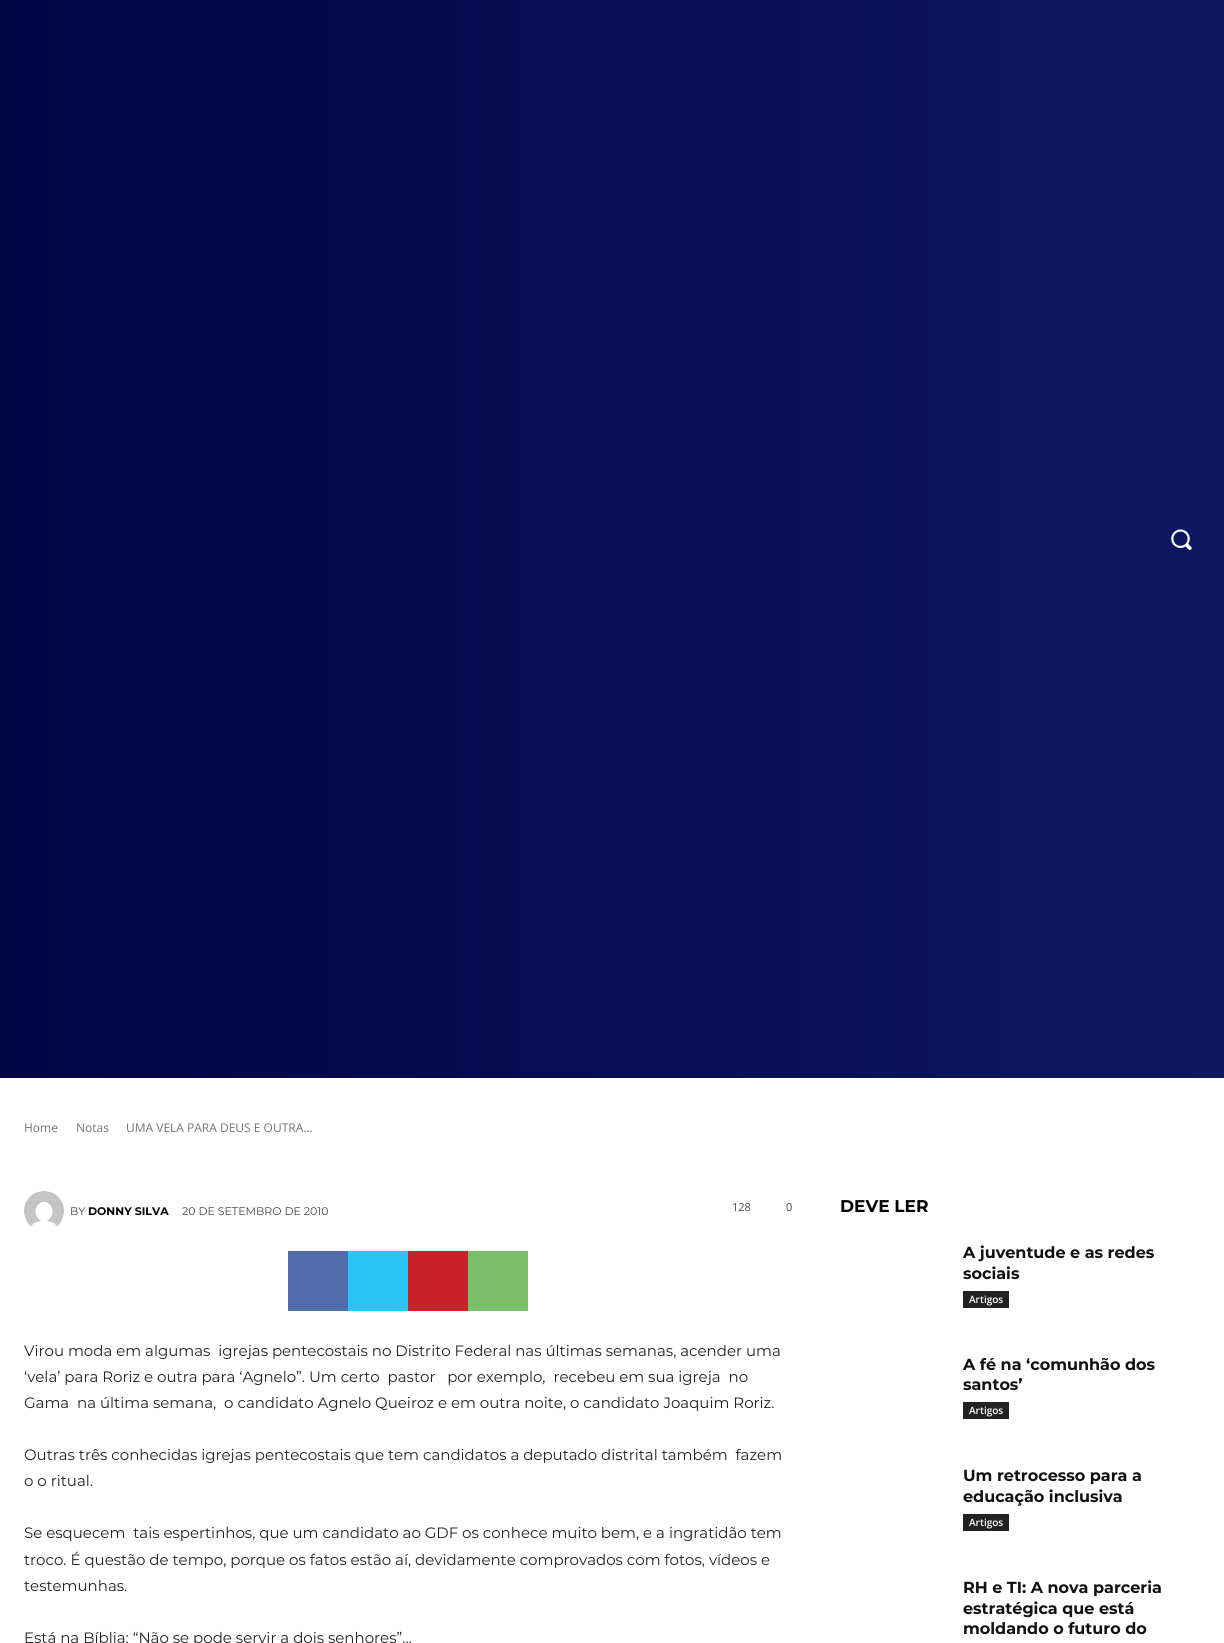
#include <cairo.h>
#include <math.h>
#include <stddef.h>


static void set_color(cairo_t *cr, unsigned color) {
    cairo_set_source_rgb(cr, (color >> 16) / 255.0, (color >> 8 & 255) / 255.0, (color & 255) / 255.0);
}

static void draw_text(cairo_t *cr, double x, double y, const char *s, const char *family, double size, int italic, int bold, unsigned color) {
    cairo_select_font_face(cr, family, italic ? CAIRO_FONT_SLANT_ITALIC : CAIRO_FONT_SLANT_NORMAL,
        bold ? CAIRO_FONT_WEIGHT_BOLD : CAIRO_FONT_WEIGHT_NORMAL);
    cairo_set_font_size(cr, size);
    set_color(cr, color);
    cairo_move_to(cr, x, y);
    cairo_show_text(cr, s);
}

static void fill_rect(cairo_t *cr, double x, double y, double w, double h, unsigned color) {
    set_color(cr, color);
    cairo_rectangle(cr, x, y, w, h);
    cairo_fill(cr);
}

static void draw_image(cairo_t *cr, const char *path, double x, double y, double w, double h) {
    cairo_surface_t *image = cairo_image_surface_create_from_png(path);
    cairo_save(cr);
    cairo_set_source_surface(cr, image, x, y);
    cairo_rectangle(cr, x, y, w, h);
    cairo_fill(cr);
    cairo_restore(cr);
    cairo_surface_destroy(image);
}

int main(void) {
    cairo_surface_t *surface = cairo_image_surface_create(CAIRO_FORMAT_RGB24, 1224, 1643);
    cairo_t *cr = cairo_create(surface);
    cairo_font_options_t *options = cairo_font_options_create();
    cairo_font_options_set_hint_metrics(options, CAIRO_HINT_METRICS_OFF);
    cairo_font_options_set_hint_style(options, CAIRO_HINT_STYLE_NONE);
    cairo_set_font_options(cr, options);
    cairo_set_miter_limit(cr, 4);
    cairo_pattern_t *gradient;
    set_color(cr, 0xFFFFFF);
    cairo_paint(cr);
    gradient = cairo_pattern_create_linear(1224, 539, 0, 539);
    cairo_pattern_add_color_stop_rgba(gradient, 0, 0.051, 0.094, 0.376, 1);
    cairo_pattern_add_color_stop_rgba(gradient, 1, 0, 0.02, 0.267, 1);
    cairo_set_source(cr, gradient);
    cairo_pattern_destroy(gradient);
    cairo_rectangle(cr, 0, 0, 1224, 1078);
    cairo_fill(cr);
    draw_image(cr, "assets/img1.png", 1171, 529, 21, 21);
    draw_text(cr, 24, 1132, "Home", "Open Sans", 12, 0, 0, 0x747474);
    draw_text(cr, 76, 1132, "Notas", "Open Sans", 12, 0, 0, 0x747474);
    draw_text(cr, 126, 1132, "UMA VELA PARA DEUS E OUTRA...", "Open Sans", 12, 0, 0, 0x747474);
    draw_image(cr, "assets/img2.png", 24, 1191, 40, 36);
    draw_text(cr, 70, 1215, "BY", "Montserrat", 11, 0, 0, 0x444444);
    draw_text(cr, 88, 1215, "DONNY SILVA", "Montserrat", 11, 0, 1, 0x000000);
    draw_text(cr, 182, 1215, "20 DE SETEMBRO DE 2010", "Montserrat", 11, 0, 0, 0x444444);
    draw_text(cr, 732, 1211, "128", "Open Sans", 11, 0, 0, 0x444444);
    draw_text(cr, 786, 1211, "0", "Open Sans", 11, 0, 0, 0x444444);
    fill_rect(cr, 288, 1251, 60, 60, 0x516EAB);
    fill_rect(cr, 348, 1251, 60, 60, 0x29C5F6);
    fill_rect(cr, 408, 1251, 60, 60, 0xCA212A);
    fill_rect(cr, 468, 1251, 60, 60, 0x7BBF6A);
    draw_text(cr, 24, 1356, "Virou moda em algumas  igrejas pentecostais no Distrito Federal nas últimas semanas, acender uma", "Montserrat", 15, 0, 0, 0x222222);
    draw_text(cr, 24, 1382, "‘vela’ para Roriz e outra para ‘Agnelo”. Um certo  pastor   por exemplo,  recebeu em sua igreja  no", "Montserrat", 15, 0, 0, 0x222222);
    draw_text(cr, 24, 1408, "Gama  na última semana,  o candidato Agnelo Queiroz e em outra noite, o candidato Joaquim Roriz.", "Montserrat", 15, 0, 0, 0x222222);
    draw_text(cr, 24, 1460, "Outras três conhecidas igrejas pentecostais que tem candidatos a deputado distrital também  fazem", "Montserrat", 15, 0, 0, 0x222222);
    draw_text(cr, 24, 1486, "o o ritual.", "Montserrat", 15, 0, 0, 0x222222);
    draw_text(cr, 24, 1538, "Se esquecem  tais espertinhos, que um candidato ao GDF os conhece muito bem, e a ingratidão tem", "Montserrat", 15, 0, 0, 0x222222);
    draw_text(cr, 24, 1565, "troco. É questão de tempo, porque os fatos estão aí, devidamente comprovados com fotos, vídeos e", "Montserrat", 15, 0, 0, 0x222222);
    draw_text(cr, 24, 1591, "testemunhas.", "Montserrat", 15, 0, 0, 0x222222);
    draw_text(cr, 24, 1643, "Está na Bíblia: “Não se pode servir a dois senhores”…", "Montserrat", 15, 0, 0, 0x222222);
    draw_text(cr, 840, 1212, "DEVE LER", "Montserrat", 17, 0, 1, 0x000000);
    draw_text(cr, 963, 1258, "A juventude e as redes", "Montserrat", 16, 0, 1, 0x111111);
    draw_text(cr, 963, 1279, "sociais", "Montserrat", 16, 0, 1, 0x111111);
    fill_rect(cr, 963, 1291, 46, 17, 0x222222);
    draw_text(cr, 969, 1303, "Artigos", "Open Sans SemiBold", 10, 0, 0, 0xFFFFFF);
    draw_text(cr, 963, 1370, "A fé na ‘comunhão dos", "Montserrat", 16, 0, 1, 0x111111);
    draw_text(cr, 963, 1390, "santos’", "Montserrat", 16, 0, 1, 0x111111);
    fill_rect(cr, 963, 1402, 46, 17, 0x222222);
    draw_text(cr, 969, 1414, "Artigos", "Open Sans SemiBold", 10, 0, 0, 0xFFFFFF);
    draw_text(cr, 963, 1481, "Um retrocesso para a", "Montserrat", 16, 0, 1, 0x111111);
    draw_text(cr, 963, 1502, "educação inclusiva", "Montserrat", 16, 0, 1, 0x111111);
    fill_rect(cr, 963, 1514, 46, 17, 0x222222);
    draw_text(cr, 969, 1526, "Artigos", "Open Sans SemiBold", 10, 0, 0, 0xFFFFFF);
    draw_text(cr, 963, 1593, "RH e TI: A nova parceria", "Montserrat", 16, 0, 1, 0x111111);
    draw_text(cr, 963, 1614, "estratégica que está", "Montserrat", 16, 0, 1, 0x111111);
    draw_text(cr, 963, 1634, "moldando o futuro do", "Montserrat", 16, 0, 1, 0x111111);
    cairo_surface_write_to_png(surface, "output.png");
    cairo_font_options_destroy(options);
    cairo_destroy(cr);
    cairo_surface_destroy(surface);
    return 0;
}
